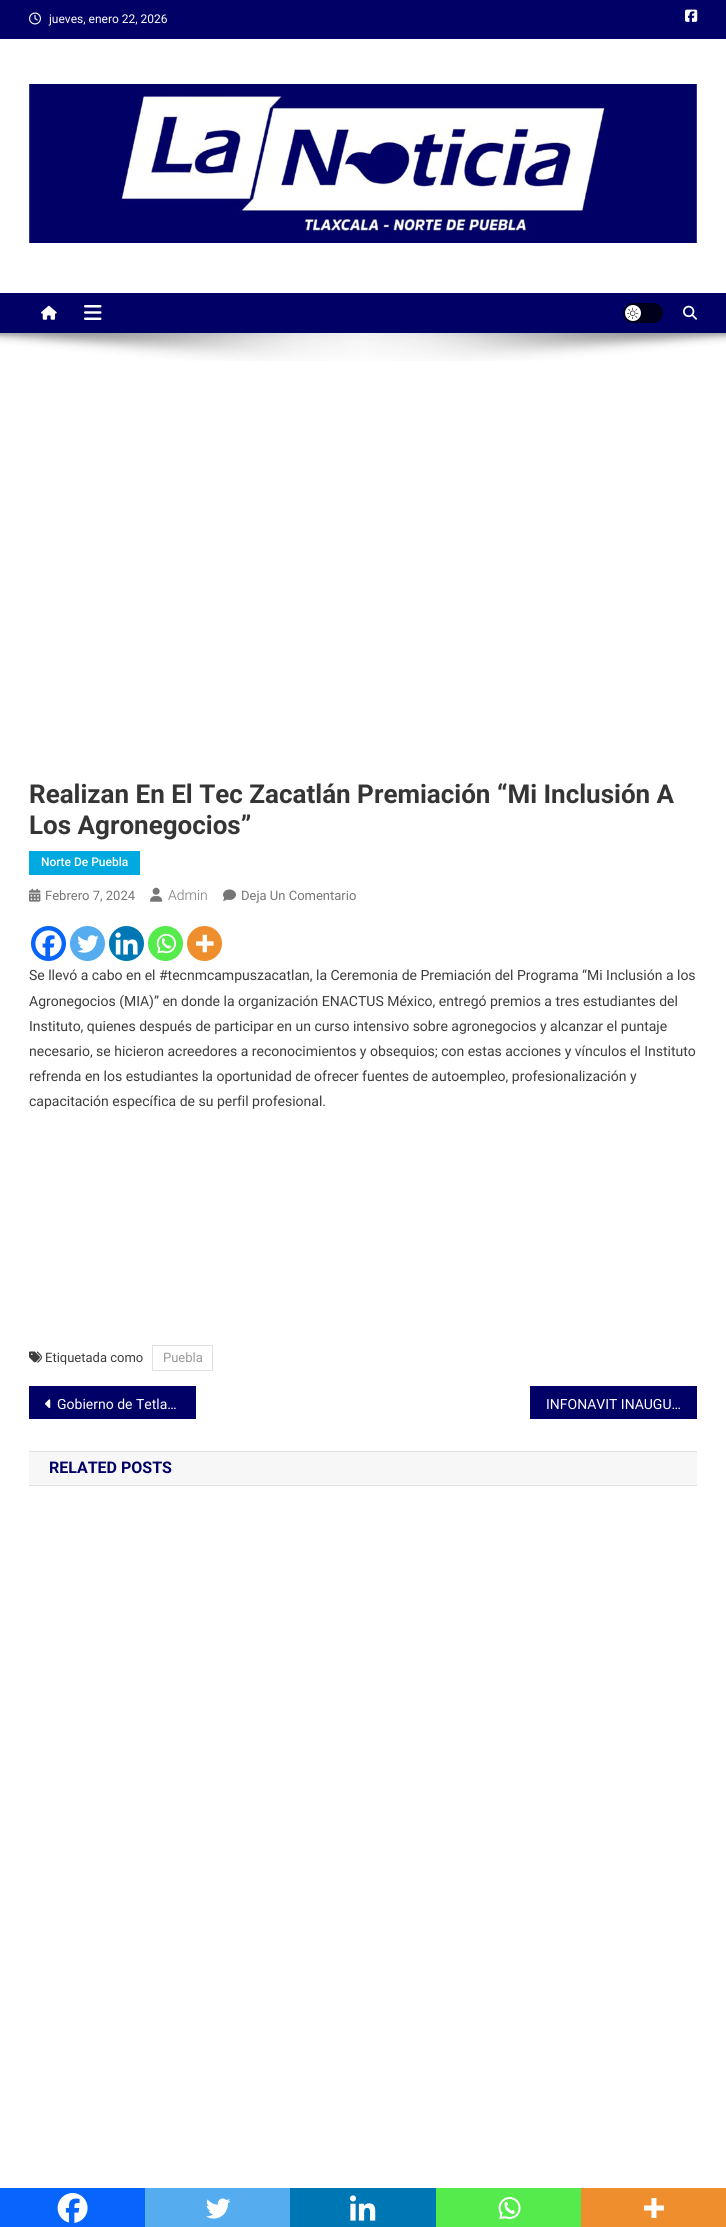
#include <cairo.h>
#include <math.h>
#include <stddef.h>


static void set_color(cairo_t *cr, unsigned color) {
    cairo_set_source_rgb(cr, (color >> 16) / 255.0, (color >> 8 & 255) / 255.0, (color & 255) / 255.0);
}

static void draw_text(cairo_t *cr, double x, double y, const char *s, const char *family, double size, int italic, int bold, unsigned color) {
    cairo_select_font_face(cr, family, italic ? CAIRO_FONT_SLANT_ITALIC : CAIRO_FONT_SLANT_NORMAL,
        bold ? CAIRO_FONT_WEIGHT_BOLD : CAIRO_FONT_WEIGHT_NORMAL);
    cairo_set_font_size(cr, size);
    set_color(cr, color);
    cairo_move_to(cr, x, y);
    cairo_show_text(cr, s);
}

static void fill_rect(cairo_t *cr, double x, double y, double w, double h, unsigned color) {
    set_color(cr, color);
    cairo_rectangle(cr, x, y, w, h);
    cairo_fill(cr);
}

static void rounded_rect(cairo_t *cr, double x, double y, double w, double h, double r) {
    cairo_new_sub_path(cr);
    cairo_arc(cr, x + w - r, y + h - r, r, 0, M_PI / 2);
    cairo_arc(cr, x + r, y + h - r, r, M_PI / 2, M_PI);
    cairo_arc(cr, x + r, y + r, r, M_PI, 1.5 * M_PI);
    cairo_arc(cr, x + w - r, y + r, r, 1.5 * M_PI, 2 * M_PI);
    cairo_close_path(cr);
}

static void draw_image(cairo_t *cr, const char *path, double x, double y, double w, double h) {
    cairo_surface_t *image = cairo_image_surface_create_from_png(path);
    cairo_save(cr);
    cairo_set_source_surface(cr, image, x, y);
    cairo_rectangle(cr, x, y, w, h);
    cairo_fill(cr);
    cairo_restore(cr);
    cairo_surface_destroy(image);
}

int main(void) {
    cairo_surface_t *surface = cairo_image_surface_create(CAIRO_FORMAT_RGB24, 726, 2227);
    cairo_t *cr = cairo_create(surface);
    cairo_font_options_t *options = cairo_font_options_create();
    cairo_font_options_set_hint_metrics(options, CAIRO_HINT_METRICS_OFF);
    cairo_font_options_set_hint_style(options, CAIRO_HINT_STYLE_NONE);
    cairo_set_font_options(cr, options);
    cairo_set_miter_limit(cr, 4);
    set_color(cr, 0xFFFFFF);
    cairo_paint(cr);
    fill_rect(cr, 0, 0, 726, 39, 0x010066);
    draw_image(cr, "assets/img1.png", 29, 12, 12, 13);
    draw_text(cr, 49, 23, "jueves, enero 22, 2026", "Roboto", 12, 0, 0, 0xFFFFFF);
    draw_image(cr, "assets/img2.png", 685, 9, 13, 13);
    draw_image(cr, "assets/img3.png", 29, 84, 668, 159);
    fill_rect(cr, 0, 293, 726, 40, 0x010066);
    draw_image(cr, "assets/img4.png", 41, 305, 16, 15);
    draw_image(cr, "assets/img5.png", 84, 305, 18, 15);
    set_color(cr, 0x00001A);
    rounded_rect(cr, 623, 303, 40, 20, 10);
    cairo_fill(cr);
    set_color(cr, 0xFFFFFF);
    cairo_arc(cr, 633, 313, 8, 0, 2 * M_PI);
    cairo_fill(cr);
    draw_image(cr, "assets/img6.png", 627, 307, 12, 12);
    draw_image(cr, "assets/img7.png", 683, 305, 14, 15);
    draw_image(cr, "assets/img8.png", 0, 333, 726, 28);
    draw_text(cr, 29, 803, "Realizan En El Tec Zacatlán Premiación “Mi Inclusión A", "Roboto", 26, 0, 1, 0x353535);
    draw_text(cr, 29, 834, "Los Agronegocios”", "Roboto", 26, 0, 1, 0x353535);
    fill_rect(cr, 29, 851, 111, 24, 0x00A9E0);
    draw_text(cr, 41, 866, "Norte De Puebla", "Roboto Medium", 12, 0, 0, 0xFFFFFF);
    draw_image(cr, "assets/img9.png", 29, 888, 12, 14);
    draw_text(cr, 45, 900, "Febrero 7, 2024", "Roboto", 13, 0, 0, 0x767676);
    draw_image(cr, "assets/img10.png", 150, 887, 13, 15);
    draw_text(cr, 168, 900, "Admin", "Roboto Light", 14, 0, 0, 0x767676);
    draw_image(cr, "assets/img11.png", 223, 889, 13, 12);
    draw_text(cr, 241, 900, "Deja Un Comentario", "Roboto", 13, 0, 0, 0x767676);
    set_color(cr, 0x0765FE);
    cairo_new_path(cr);
    cairo_arc(cr, 48.5, 943.5, 17.5, 0, 2 * M_PI);
    cairo_fill(cr);
    draw_image(cr, "assets/img12.png", 35, 930, 27, 27);
    set_color(cr, 0x55ACEE);
    cairo_arc(cr, 87.5, 943.5, 17.5, 0, 2 * M_PI);
    cairo_fill(cr);
    draw_image(cr, "assets/img13.png", 77, 935, 22, 18);
    set_color(cr, 0x0077B5);
    cairo_arc(cr, 126.5, 943.5, 17.5, 0, 2 * M_PI);
    cairo_fill(cr);
    draw_image(cr, "assets/img14.png", 115, 932, 23, 23);
    set_color(cr, 0x55EB4C);
    cairo_arc(cr, 165.5, 943.5, 17.5, 0, 2 * M_PI);
    cairo_fill(cr);
    draw_image(cr, "assets/img15.png", 156, 933, 20, 21);
    set_color(cr, 0xEE8E2D);
    cairo_arc(cr, 204.5, 943.5, 17.5, 0, 2 * M_PI);
    cairo_fill(cr);
    draw_image(cr, "assets/img16.png", 196, 934, 18, 19);
    draw_text(cr, 29, 980, "Se llevó a cabo en el #tecnmcampuszacatlan, la Ceremonia de Premiación del Programa “Mi Inclusión a los", "Roboto", 14, 0, 0, 0x3D3D3D);
    draw_text(cr, 29, 1006, "Agronegocios (MIA)” en donde la organización ENACTUS México, entregó premios a tres estudiantes del", "Roboto", 14, 0, 0, 0x3D3D3D);
    draw_text(cr, 29, 1031, "Instituto, quienes después de participar en un curso intensivo sobre agronegocios y alcanzar el puntaje", "Roboto", 14, 0, 0, 0x3D3D3D);
    draw_text(cr, 29, 1056, "necesario, se hicieron acreedores a reconocimientos y obsequios; con estas acciones y vínculos el Instituto", "Roboto", 14, 0, 0, 0x3D3D3D);
    draw_text(cr, 29, 1081, "refrenda en los estudiantes la oportunidad de ofrecer fuentes de autoempleo, profesionalización y", "Roboto", 14, 0, 0, 0x3D3D3D);
    draw_text(cr, 29, 1106, "capacitación específica de su perfil profesional.", "Roboto", 14, 0, 0, 0x3D3D3D);
    fill_rect(cr, 0, 2188, 145, 39, 0x0765FE);
    draw_image(cr, "assets/img17.png", 57, 2193, 31, 30);
    fill_rect(cr, 145, 2188, 145, 39, 0x55ACEE);
    draw_image(cr, "assets/img18.png", 206, 2198, 25, 21);
    fill_rect(cr, 290, 2188, 146, 39, 0x0077B5);
    draw_image(cr, "assets/img19.png", 350, 2195, 26, 26);
    fill_rect(cr, 436, 2188, 145, 39, 0x55EB4C);
    draw_image(cr, "assets/img20.png", 498, 2197, 23, 23);
    fill_rect(cr, 581, 2188, 145, 39, 0xEE8E2D);
    draw_image(cr, "assets/img21.png", 643, 2198, 21, 20);
    draw_image(cr, "assets/img22.png", 29, 1351, 13, 12);
    draw_text(cr, 45, 1362, "Etiquetada como", "Roboto", 13, 0, 0, 0x3D3D3D);
    cairo_rectangle(cr, 152.5, 1345.5, 60, 25);
    set_color(cr, 0xE1E1E1);
    cairo_set_line_width(cr, 1);
    cairo_stroke(cr);
    draw_text(cr, 163, 1362, "Puebla", "Roboto", 13, 0, 0, 0x999999);
    fill_rect(cr, 29, 1386, 167, 33, 0x010066);
    draw_image(cr, "assets/img23.png", 45, 1399, 6, 10);
    draw_text(cr, 57, 1409, "Gobierno de Tetla…", "Roboto", 14, 0, 0, 0xFFFFFF);
    fill_rect(cr, 530, 1386, 167, 33, 0x010066);
    draw_text(cr, 546, 1409, "INFONAVIT INAUGU…", "Roboto", 14, 0, 0, 0xFFFFFF);
    fill_rect(cr, 29, 1452, 668, 33, 0xF7F7F7);
    fill_rect(cr, 29, 1451, 668, 1, 0xE1E1E1);
    fill_rect(cr, 29, 1485, 668, 1, 0xE1E1E1);
    draw_text(cr, 49, 1473, "RELATED POSTS", "Roboto", 16, 0, 1, 0x010066);
    cairo_surface_write_to_png(surface, "output.png");
    cairo_font_options_destroy(options);
    cairo_destroy(cr);
    cairo_surface_destroy(surface);
    return 0;
}
